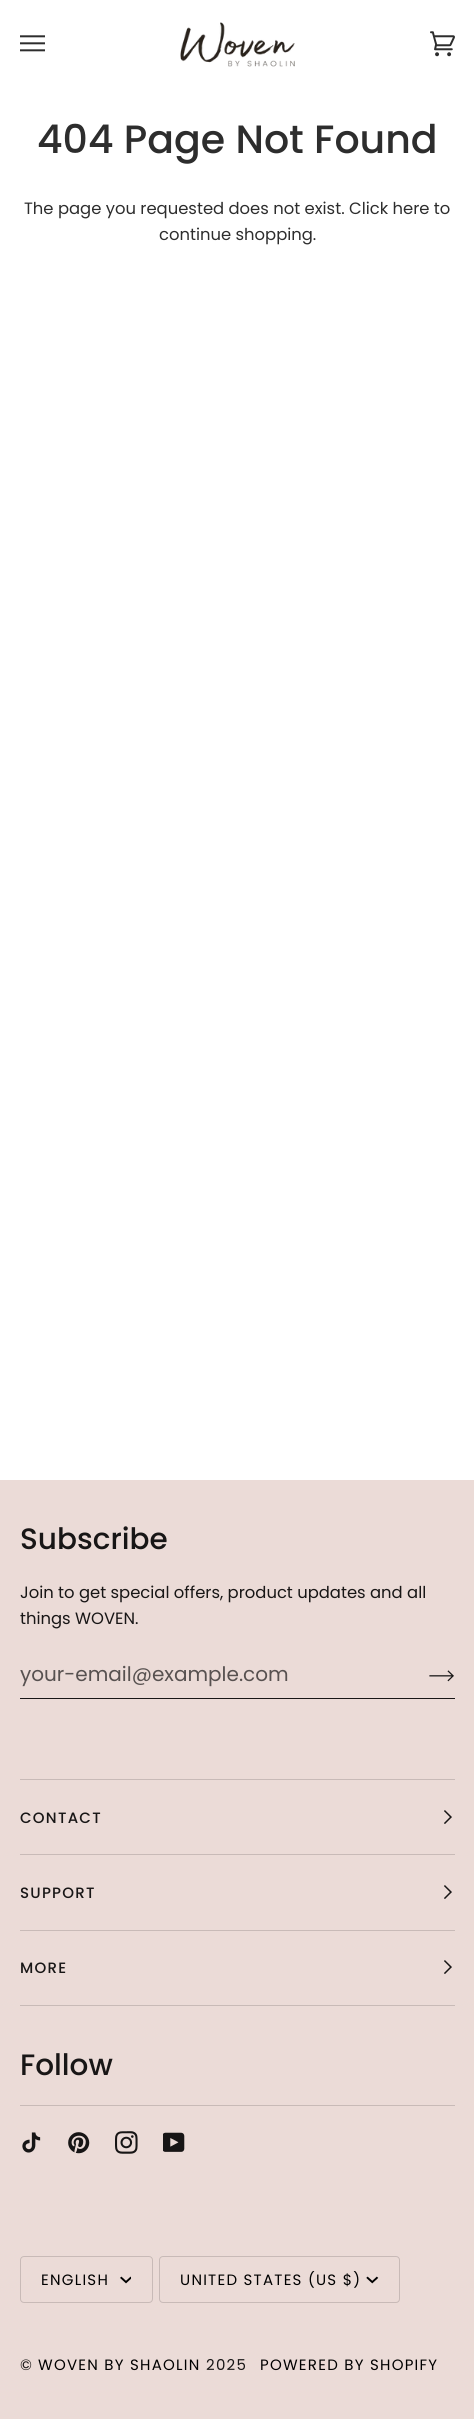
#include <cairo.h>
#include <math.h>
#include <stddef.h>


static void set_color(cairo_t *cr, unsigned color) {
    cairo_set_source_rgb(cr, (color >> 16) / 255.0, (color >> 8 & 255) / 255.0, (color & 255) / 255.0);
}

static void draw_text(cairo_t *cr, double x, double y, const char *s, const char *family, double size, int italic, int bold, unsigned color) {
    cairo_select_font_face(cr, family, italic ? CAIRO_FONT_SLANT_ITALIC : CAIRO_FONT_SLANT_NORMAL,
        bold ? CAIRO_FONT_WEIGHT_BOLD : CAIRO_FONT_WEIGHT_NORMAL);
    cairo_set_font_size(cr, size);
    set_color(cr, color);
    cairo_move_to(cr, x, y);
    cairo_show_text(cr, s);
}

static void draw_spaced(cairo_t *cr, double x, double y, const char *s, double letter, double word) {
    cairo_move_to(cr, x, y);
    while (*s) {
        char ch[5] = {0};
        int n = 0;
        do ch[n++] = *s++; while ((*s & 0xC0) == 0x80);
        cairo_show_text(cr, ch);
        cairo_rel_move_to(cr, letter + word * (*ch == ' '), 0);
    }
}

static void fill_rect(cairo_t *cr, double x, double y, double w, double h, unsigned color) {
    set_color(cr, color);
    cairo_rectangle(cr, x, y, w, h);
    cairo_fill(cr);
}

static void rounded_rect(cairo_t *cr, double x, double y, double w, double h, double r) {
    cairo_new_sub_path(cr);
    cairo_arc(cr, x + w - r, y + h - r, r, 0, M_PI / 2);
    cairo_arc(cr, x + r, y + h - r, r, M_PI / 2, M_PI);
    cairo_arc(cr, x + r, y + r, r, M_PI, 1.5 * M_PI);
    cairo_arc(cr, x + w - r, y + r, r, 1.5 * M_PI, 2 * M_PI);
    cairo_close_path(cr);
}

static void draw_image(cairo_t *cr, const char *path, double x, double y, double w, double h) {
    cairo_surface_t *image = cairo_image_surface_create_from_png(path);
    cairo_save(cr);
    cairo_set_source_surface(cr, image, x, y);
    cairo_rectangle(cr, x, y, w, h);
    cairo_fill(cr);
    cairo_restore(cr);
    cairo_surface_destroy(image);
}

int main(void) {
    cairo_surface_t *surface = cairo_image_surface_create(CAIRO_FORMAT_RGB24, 474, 2419);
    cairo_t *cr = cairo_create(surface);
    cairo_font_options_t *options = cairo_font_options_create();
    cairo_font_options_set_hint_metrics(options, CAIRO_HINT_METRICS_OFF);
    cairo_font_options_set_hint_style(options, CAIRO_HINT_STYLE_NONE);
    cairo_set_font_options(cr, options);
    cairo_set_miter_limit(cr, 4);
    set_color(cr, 0xFFFFFF);
    cairo_paint(cr);
    draw_image(cr, "assets/img1.png", 20, 35, 25, 17);
    draw_image(cr, "assets/img2.png", 180, 22, 115, 45);
    draw_image(cr, "assets/img3.png", 430, 31, 25, 26);
    draw_text(cr, 37, 153, "404 Page Not Found", "Poppins Medium", 39.5, 0, 0, 0x2D2D2D);
    draw_text(cr, 24, 214, "The page you requested does not exist. Click here to", "Poppins", 16.4, 0, 0, 0x2D2D2D);
    draw_text(cr, 159, 240, "continue shopping.", "Poppins", 16.4, 0, 0, 0x2D2D2D);
    fill_rect(cr, 0, 1480, 474, 939, 0xEBDBD7);
    draw_text(cr, 20, 1549, "Subscribe", "Poppins Medium", 29.5, 0, 0, 0x181616);
    draw_text(cr, 20, 1598, "Join to get special offers, product updates and all", "Poppins", 16.4, 0, 0, 0x181616);
    draw_text(cr, 20, 1624, "things WOVEN.", "Poppins", 16.4, 0, 0, 0x181616);
    fill_rect(cr, 20, 1698, 435, 1, 0x181616);
    draw_text(cr, 20, 1681, "your-email@example.com", "Poppins", 20, 0, 0, 0x575150);
    draw_image(cr, "assets/img4.png", 429, 1670, 25, 12);
    fill_rect(cr, 20, 1779, 435, 1, 0xC8BAB7);
    fill_rect(cr, 20, 1854, 435, 1, 0xC8BAB7);
    cairo_select_font_face(cr, "Poppins Medium", CAIRO_FONT_SLANT_NORMAL, CAIRO_FONT_WEIGHT_NORMAL);
    cairo_set_font_size(cr, 15);
    set_color(cr, 0x181616);
    draw_spaced(cr, 20, 1823, "CONTACT", 1.25, 0);
    draw_image(cr, "assets/img5.png", 444, 1810, 8, 14);
    fill_rect(cr, 20, 1930, 435, 1, 0xC8BAB7);
    set_color(cr, 0x181616);
    draw_spaced(cr, 20, 1898, "SUPPORT", 1.25, 0);
    draw_image(cr, "assets/img5.png", 444, 1885, 8, 14);
    fill_rect(cr, 20, 2005, 435, 1, 0xC8BAB7);
    set_color(cr, 0x181616);
    draw_spaced(cr, 20, 1973, "MORE", 1.25, 0);
    draw_image(cr, "assets/img5.png", 444, 1960, 8, 14);
    draw_text(cr, 20, 2075, "Follow", "Poppins Medium", 29.5, 0, 0, 0x181616);
    fill_rect(cr, 20, 2105, 435, 1, 0xC8BAB7);
    draw_image(cr, "assets/img6.png", 22, 2132, 19, 21);
    draw_image(cr, "assets/img7.png", 68, 2132, 22, 22);
    draw_image(cr, "assets/img8.png", 115, 2131, 23, 23);
    draw_image(cr, "assets/img9.png", 163, 2132, 22, 20);
    rounded_rect(cr, 20.5, 2256.5, 132, 46, 3.5);
    cairo_set_line_width(cr, 1);
    cairo_stroke(cr);
    cairo_select_font_face(cr, "Poppins", CAIRO_FONT_SLANT_NORMAL, CAIRO_FONT_WEIGHT_NORMAL);
    cairo_set_font_size(cr, 15);
    set_color(cr, 0x000000);
    draw_spaced(cr, 41, 2285, "ENGLISH", 1.25, 0);
    draw_image(cr, "assets/img10.png", 120, 2276, 11, 8);
    rounded_rect(cr, 159.5, 2256.5, 240, 46, 3.5);
    set_color(cr, 0xC8BAB7);
    cairo_stroke(cr);
    set_color(cr, 0x000000);
    draw_spaced(cr, 180, 2285, "UNITED STATES (US $)", 1.25, 0);
    draw_image(cr, "assets/img11.png", 366, 2276, 13, 8);
    set_color(cr, 0x181616);
    draw_spaced(cr, 20, 2370, "©", 1.25, 0);
    set_color(cr, 0x000000);
    draw_spaced(cr, 38, 2370, "WOVEN BY SHAOLIN", 1.25, 0);
    set_color(cr, 0x181616);
    draw_spaced(cr, 206, 2370, "2025", 1.25, 0);
    set_color(cr, 0x000000);
    draw_spaced(cr, 260, 2370, "POWERED BY SHOPIFY", 1.25, 0);
    cairo_surface_write_to_png(surface, "output.png");
    cairo_font_options_destroy(options);
    cairo_destroy(cr);
    cairo_surface_destroy(surface);
    return 0;
}
